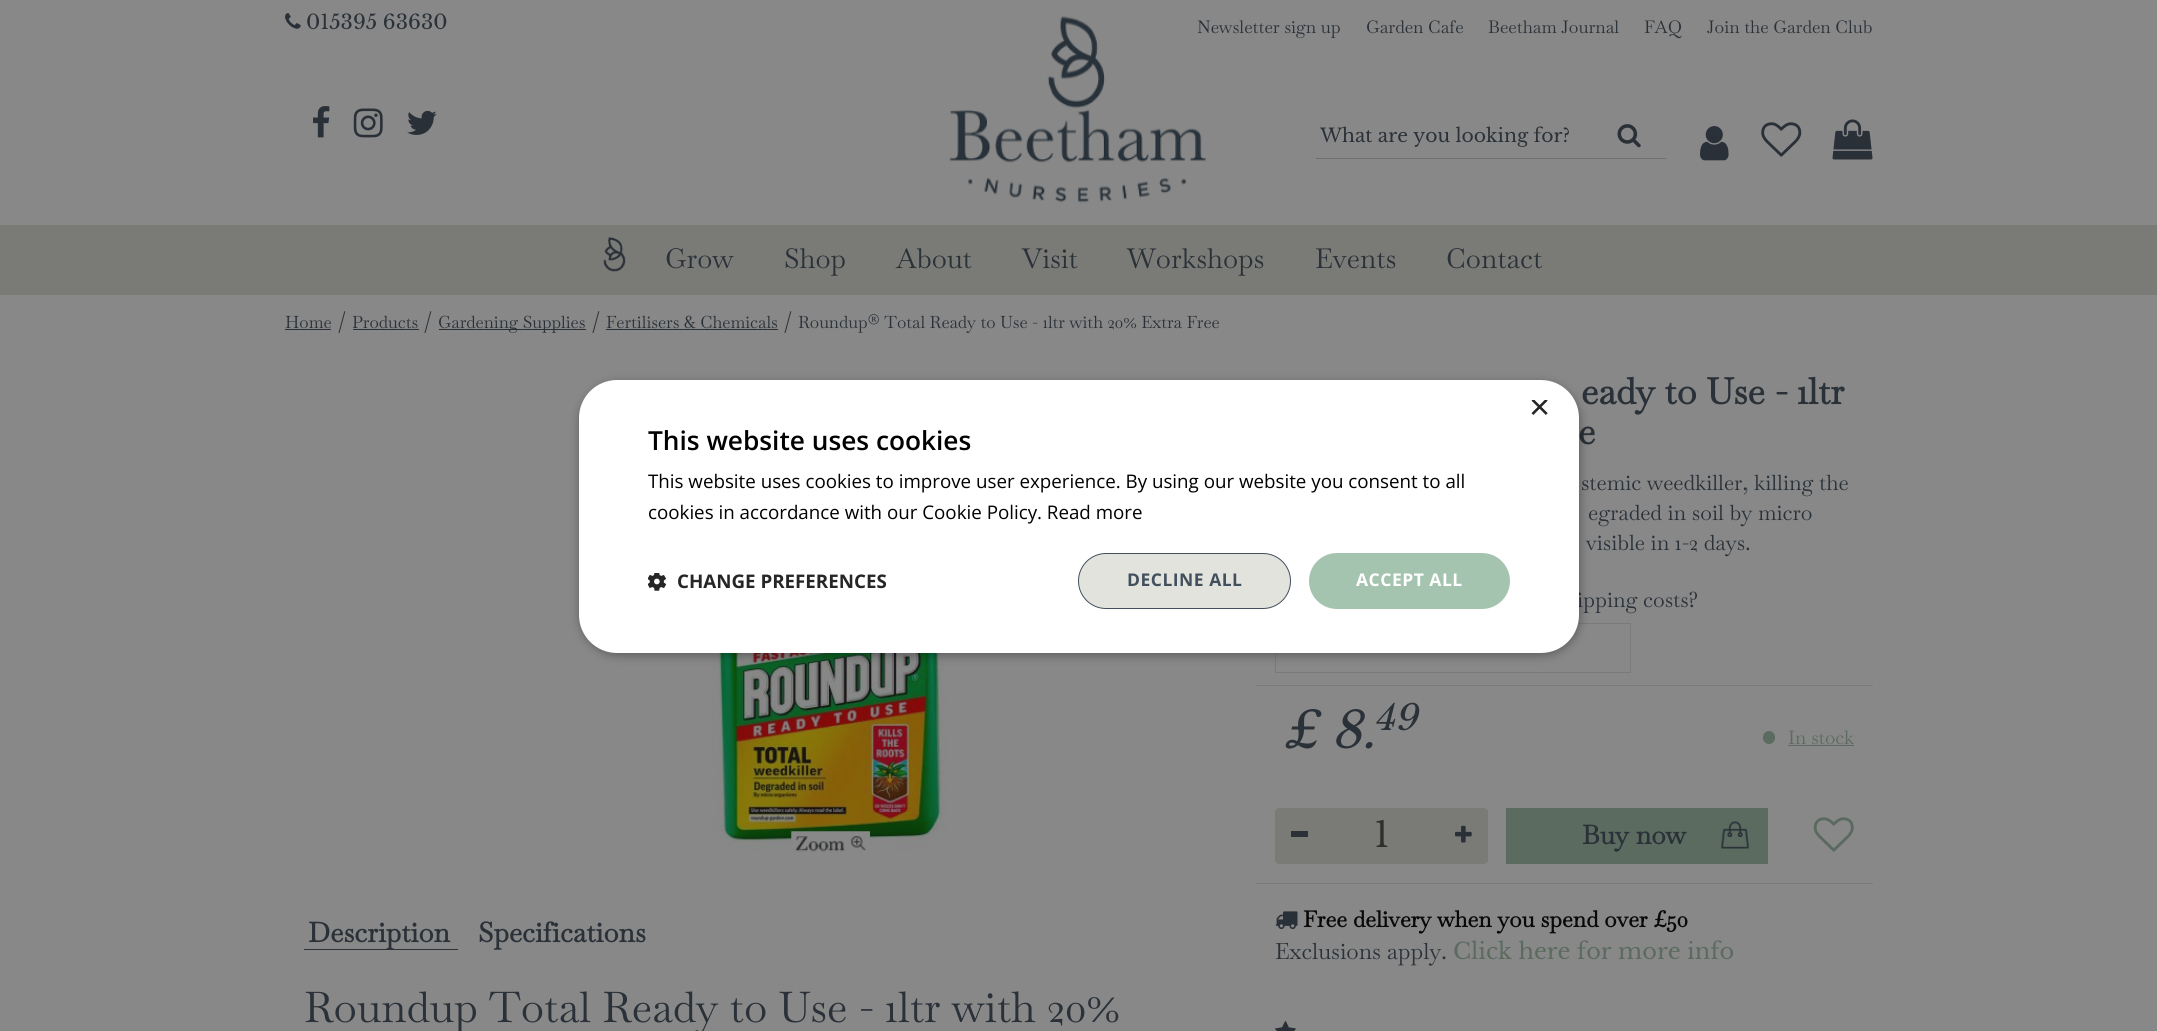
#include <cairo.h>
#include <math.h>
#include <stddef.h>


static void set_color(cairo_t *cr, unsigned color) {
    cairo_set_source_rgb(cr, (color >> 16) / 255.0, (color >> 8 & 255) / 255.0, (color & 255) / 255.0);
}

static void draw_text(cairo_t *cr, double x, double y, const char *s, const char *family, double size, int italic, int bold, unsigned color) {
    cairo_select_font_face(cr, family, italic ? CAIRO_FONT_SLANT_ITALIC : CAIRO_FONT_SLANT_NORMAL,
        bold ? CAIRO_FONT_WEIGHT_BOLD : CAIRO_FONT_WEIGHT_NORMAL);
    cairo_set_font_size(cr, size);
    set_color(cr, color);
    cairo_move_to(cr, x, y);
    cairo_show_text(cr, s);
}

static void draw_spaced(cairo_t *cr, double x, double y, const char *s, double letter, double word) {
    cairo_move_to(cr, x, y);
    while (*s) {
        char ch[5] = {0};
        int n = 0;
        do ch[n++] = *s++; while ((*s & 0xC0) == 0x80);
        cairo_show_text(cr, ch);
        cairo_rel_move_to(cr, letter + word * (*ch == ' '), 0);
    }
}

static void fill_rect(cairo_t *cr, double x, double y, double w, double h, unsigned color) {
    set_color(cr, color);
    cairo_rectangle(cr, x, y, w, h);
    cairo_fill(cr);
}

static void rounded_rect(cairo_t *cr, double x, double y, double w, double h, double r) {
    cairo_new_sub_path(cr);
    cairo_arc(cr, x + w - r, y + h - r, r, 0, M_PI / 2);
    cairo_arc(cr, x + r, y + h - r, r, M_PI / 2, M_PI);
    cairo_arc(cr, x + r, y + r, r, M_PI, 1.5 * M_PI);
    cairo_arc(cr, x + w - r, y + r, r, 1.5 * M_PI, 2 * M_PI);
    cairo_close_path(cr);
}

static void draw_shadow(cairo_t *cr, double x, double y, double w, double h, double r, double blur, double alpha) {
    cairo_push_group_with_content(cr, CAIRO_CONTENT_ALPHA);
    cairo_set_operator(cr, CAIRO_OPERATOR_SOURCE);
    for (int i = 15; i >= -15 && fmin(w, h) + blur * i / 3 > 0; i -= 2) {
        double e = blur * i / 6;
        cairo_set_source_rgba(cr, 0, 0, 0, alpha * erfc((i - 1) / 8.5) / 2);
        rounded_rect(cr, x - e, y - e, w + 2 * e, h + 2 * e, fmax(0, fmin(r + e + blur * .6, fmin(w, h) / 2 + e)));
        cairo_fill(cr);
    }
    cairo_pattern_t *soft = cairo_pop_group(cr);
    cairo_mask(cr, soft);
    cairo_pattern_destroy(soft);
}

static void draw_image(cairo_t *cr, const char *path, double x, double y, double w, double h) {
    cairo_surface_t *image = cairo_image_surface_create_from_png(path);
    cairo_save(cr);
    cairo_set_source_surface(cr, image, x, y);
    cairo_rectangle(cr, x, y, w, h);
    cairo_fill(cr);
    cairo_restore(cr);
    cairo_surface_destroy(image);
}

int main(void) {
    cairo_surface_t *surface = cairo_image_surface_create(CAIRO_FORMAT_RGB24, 2157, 1031);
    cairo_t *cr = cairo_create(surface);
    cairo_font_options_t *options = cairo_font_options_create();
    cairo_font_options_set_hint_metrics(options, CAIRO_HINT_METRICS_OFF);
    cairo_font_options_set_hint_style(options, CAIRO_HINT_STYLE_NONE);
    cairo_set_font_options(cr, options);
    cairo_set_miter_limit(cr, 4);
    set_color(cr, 0x888888);
    cairo_paint(cr);
    draw_image(cr, "assets/img1.png", 285, 13, 16, 16);
    draw_text(cr, 306, 29, "015395 63630", "Libre Baskerville", 20, 0, 0, 0x2A3138);
    draw_image(cr, "assets/img2.png", 949, 16, 257, 187);
    draw_text(cr, 1197, 33, "Newsletter sign up", "Baskervville", 17.5, 0, 0, 0x2A3138);
    draw_text(cr, 1366, 33, "Garden Cafe", "Baskervville", 17.5, 0, 0, 0x2A3138);
    draw_text(cr, 1488, 33, "Beetham Journal", "Baskervville", 17.5, 0, 0, 0x2A3138);
    draw_text(cr, 1644, 33, "FAQ", "Baskervville", 17.5, 0, 0, 0x2A3138);
    draw_text(cr, 1707, 33, "Join the Garden Club", "Baskervville", 17.5, 0, 0, 0x2A3138);
    draw_image(cr, "assets/img3.png", 313, 106, 17, 32);
    draw_image(cr, "assets/img4.png", 353, 108, 30, 30);
    draw_image(cr, "assets/img5.png", 407, 110, 30, 25);
    fill_rect(cr, 1316, 158, 350, 1, 0x6F6F6F);
    draw_text(cr, 1320, 142, "What are you looking for?", "Libre Baskerville", 18.75, 0, 0, 0x2A3138);
    draw_image(cr, "assets/img6.png", 1617, 124, 24, 24);
    draw_image(cr, "assets/img7.png", 1700, 126, 29, 35);
    draw_image(cr, "assets/img8.png", 1761, 122, 41, 35);
    draw_image(cr, "assets/img9.png", 1832, 119, 41, 41);
    fill_rect(cr, 0, 225, 2157, 70, 0x7A7A77);
    draw_image(cr, "assets/img10.png", 603, 237, 23, 35);
    draw_text(cr, 665, 268, "Grow", "Baskervville", 27.5, 0, 0, 0x2A3138);
    draw_text(cr, 784, 268, "Shop", "Baskervville", 27.5, 0, 0, 0x2A3138);
    draw_text(cr, 896, 268, "About", "Baskervville", 27.5, 0, 0, 0x2A3138);
    draw_text(cr, 1022, 268, "Visit", "Baskervville", 27.5, 0, 0, 0x2A3138);
    draw_text(cr, 1127, 268, "Workshops", "Baskervville", 27.5, 0, 0, 0x2A3138);
    draw_text(cr, 1315, 268, "Events", "Baskervville", 27.5, 0, 0, 0x2A3138);
    draw_text(cr, 1446, 268, "Contact", "Baskervville", 27.5, 0, 0, 0x2A3138);
    draw_text(cr, 308, 942, "Description", "Baskervville", 27.5, 0, 1, 0x2A3138);
    fill_rect(cr, 304, 949, 154, 1, 0x2A3138);
    draw_text(cr, 478, 942, "Specifications", "Baskervville", 27.5, 0, 1, 0x2A3138);
    draw_text(cr, 304, 1022, "Roundup Total Ready to Use - 1ltr with 20%", "Baskervville", 42.5, 0, 0, 0x2A3138);
    draw_image(cr, "assets/img11.png", 711, 653, 236, 197);
    draw_image(cr, "assets/img12.png", 791, 831, 79, 21);
    draw_text(cr, 1581, 404, "eady to Use - 1ltr", "Baskervville", 36.25, 0, 1, 0x2A3138);
    draw_text(cr, 1578, 444, "e", "Baskervville", 36.25, 0, 1, 0x2A3138);
    draw_text(cr, 1581, 490, "stemic weedkiller, killing the", "Baskervville", 21.25, 0, 0, 0x2A3138);
    draw_text(cr, 1588, 520, "egraded in soil by micro", "Baskervville", 21.25, 0, 0, 0x2A3138);
    draw_text(cr, 1586, 550, "visible in 1-2 days.", "Baskervville", 21.25, 0, 0, 0x2A3138);
    draw_text(cr, 1577, 607, "ipping costs?", "Baskervville", 21.25, 0, 0, 0x2A3138);
    cairo_rectangle(cr, 1275.5, 623.5, 355, 49);
    set_color(cr, 0x7A7A77);
    cairo_set_line_width(cr, 1);
    cairo_stroke(cr);
    fill_rect(cr, 1256, 685, 617, 1, 0x7A7A77);
    draw_text(cr, 1283, 748, "£ 8.", "Libre Baskerville", 50, 1, 0, 0x2A3138);
    draw_text(cr, 1374, 730, "49", "Libre Baskerville", 35, 1, 0, 0x2A3138);
    set_color(cr, 0x5B6B60);
    rounded_rect(cr, 1763, 731, 12, 13, 6);
    cairo_fill(cr);
    draw_text(cr, 1788, 744, "In stock", "Baskervville", 18.75, 0, 0, 0x5B6B60);
    fill_rect(cr, 1788, 745, 66, 1, 0x5B6B60);
    fill_rect(cr, 1256, 883, 617, 1, 0x7A7A77);
    rounded_rect(cr, 1275.5, 808.5, 212, 55, 3.5);
    cairo_fill_preserve(cr);
    cairo_stroke(cr);
    fill_rect(cr, 1291, 831, 17, 6, 0x2A3138);
    draw_text(cr, 1374, 847, "1", "Libre Baskerville", 35, 0, 0, 0x2F2F2F);
    draw_image(cr, "assets/img13.png", 1455, 825, 17, 18);
    fill_rect(cr, 1506, 808, 262, 56, 0x5B6B60);
    draw_text(cr, 1582, 844, "Buy now", "Baskervville", 26.25, 0, 1, 0x2A3138);
    draw_image(cr, "assets/img14.png", 1721, 821, 28, 28);
    draw_image(cr, "assets/img15.png", 1813, 817, 41, 35);
    draw_image(cr, "assets/img16.png", 1275, 911, 23, 19);
    draw_text(cr, 1303, 927, "Free delivery when you spend over £50", "Baskervville", 22.5, 0, 1, 0x090909);
    draw_text(cr, 1275, 959, "Exclusions apply.", "Baskervville", 22.5, 0, 0, 0x2A3138);
    draw_text(cr, 1453, 959, "Click here for more info", "Libre Baskerville", 22.5, 0, 0, 0x5B6B60);
    draw_image(cr, "assets/img17.png", 1275, 1021, 21, 10);
    draw_text(cr, 285, 328, "Home", "Baskervville", 17, 0, 0, 0x2A3138);
    fill_rect(cr, 285, 329, 46, 1, 0x2A3138);
    draw_text(cr, 338, 330, "/", "Baskervville", 22.5, 0, 0, 0x2A3138);
    draw_text(cr, 352, 328, "Products", "Baskervville", 17, 0, 0, 0x2A3138);
    fill_rect(cr, 353, 329, 66, 1, 0x2A3138);
    draw_text(cr, 424, 330, "/", "Baskervville", 22.5, 0, 0, 0x2A3138);
    fill_rect(cr, 439, 329, 147, 1, 0x2A3138);
    draw_text(cr, 438, 328, "Gardening Supplies", "Baskervville", 17, 0, 0, 0x2A3138);
    draw_text(cr, 592, 330, "/", "Baskervville", 22.5, 0, 0, 0x2A3138);
    draw_text(cr, 606, 328, "Fertilisers & Chemicals", "Baskervville", 17, 0, 0, 0x2A3138);
    fill_rect(cr, 606, 329, 172, 1, 0x2A3138);
    draw_text(cr, 784, 330, "/", "Baskervville", 22.5, 0, 0, 0x2A3138);
    draw_text(cr, 798, 328, "Roundup® Total Ready to Use - 1ltr with 20% Extra Free", "Baskervville", 17, 0, 0, 0x2A3138);
    set_color(cr, 0x000000);
    draw_shadow(cr, 580, 383, 1000, 272, 38, 5, 0.35);
    set_color(cr, 0xFFFFFF);
    rounded_rect(cr, 579, 380, 1000, 273, 38);
    cairo_fill(cr);
    cairo_save(cr);
    cairo_rectangle(cr, 1529, 400, 19, 19);
    cairo_clip(cr);
    draw_text(cr, 1529, 419, "×", "Liberation Sans", 36.25, 0, 0, 0x262626);
    cairo_restore(cr);
    draw_text(cr, 648, 450, "This website uses cookies", "Open Sans SemiBold", 26.25, 0, 0, 0x000000);
    draw_text(cr, 648, 488, "This website uses cookies to improve user experience. By using our website you consent to all", "Open Sans", 18.75, 0, 0, 0x000000);
    draw_text(cr, 648, 519, "cookies in accordance with our Cookie Policy. Read more", "Open Sans", 18.75, 0, 0, 0x000000);
    draw_image(cr, "assets/img18.png", 648, 573, 18, 18);
    draw_text(cr, 677, 588, "CHANGE PREFERENCES", "Open Sans", 18.75, 0, 1, 0x262626);
    set_color(cr, 0xE3E3DD);
    rounded_rect(cr, 1078.5, 553.5, 212, 55, 27.5);
    cairo_fill_preserve(cr);
    set_color(cr, 0x42505E);
    cairo_stroke(cr);
    cairo_set_font_size(cr, 17.5);
    draw_spaced(cr, 1127, 586, "DECLINE ALL", 0.5, 0);
    set_color(cr, 0xA5C4AF);
    rounded_rect(cr, 1309, 553, 201, 56, 28);
    cairo_fill(cr);
    set_color(cr, 0xFFFFFF);
    draw_spaced(cr, 1356, 586, "ACCEPT ALL", 0.5, 0);
    cairo_surface_write_to_png(surface, "output.png");
    cairo_font_options_destroy(options);
    cairo_destroy(cr);
    cairo_surface_destroy(surface);
    return 0;
}
